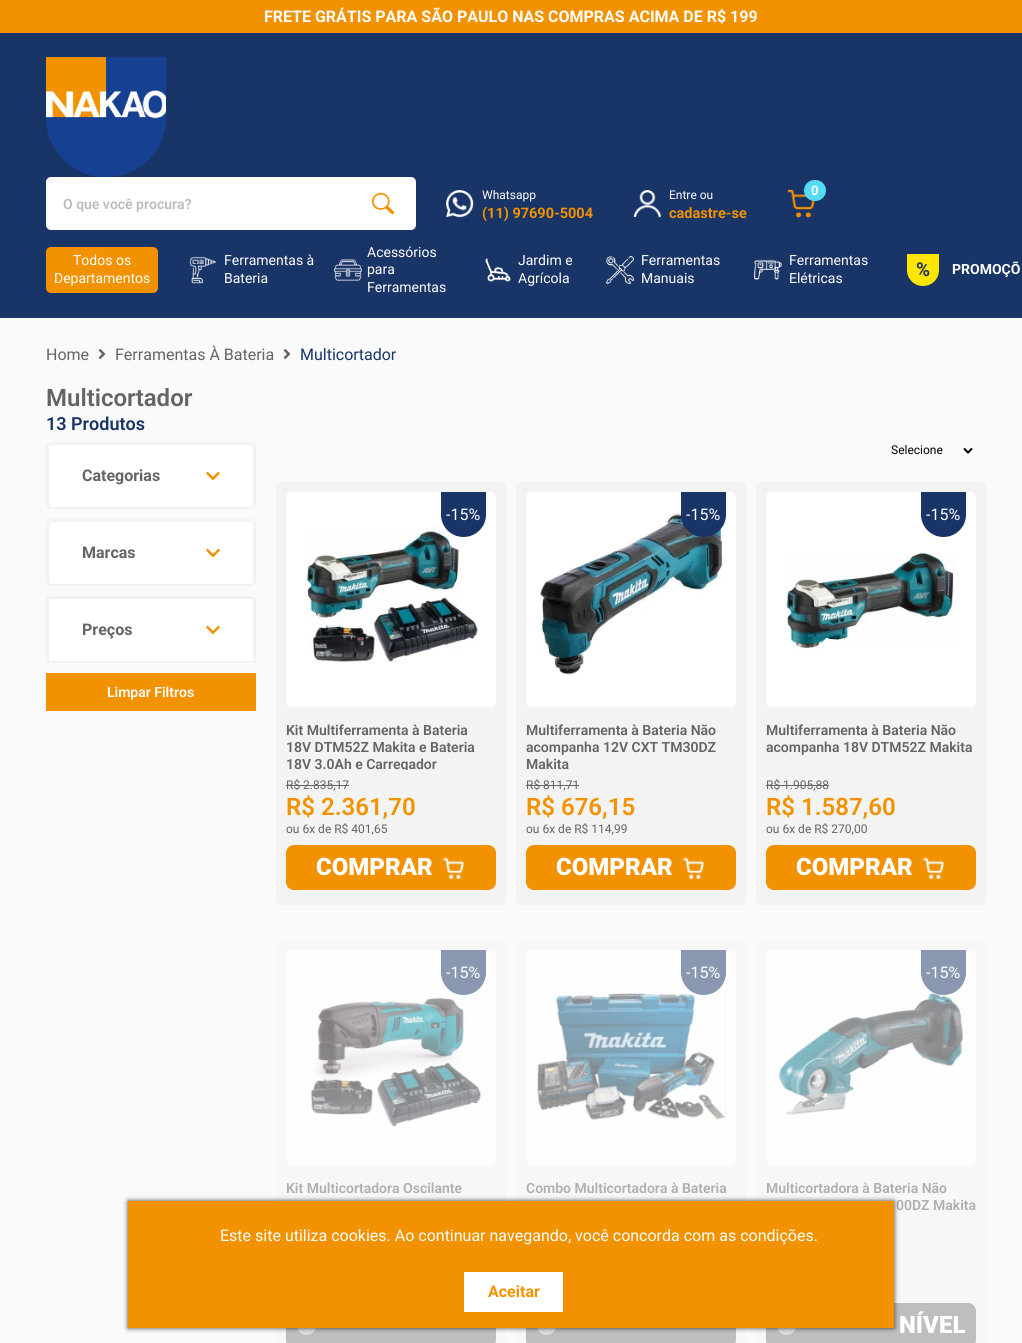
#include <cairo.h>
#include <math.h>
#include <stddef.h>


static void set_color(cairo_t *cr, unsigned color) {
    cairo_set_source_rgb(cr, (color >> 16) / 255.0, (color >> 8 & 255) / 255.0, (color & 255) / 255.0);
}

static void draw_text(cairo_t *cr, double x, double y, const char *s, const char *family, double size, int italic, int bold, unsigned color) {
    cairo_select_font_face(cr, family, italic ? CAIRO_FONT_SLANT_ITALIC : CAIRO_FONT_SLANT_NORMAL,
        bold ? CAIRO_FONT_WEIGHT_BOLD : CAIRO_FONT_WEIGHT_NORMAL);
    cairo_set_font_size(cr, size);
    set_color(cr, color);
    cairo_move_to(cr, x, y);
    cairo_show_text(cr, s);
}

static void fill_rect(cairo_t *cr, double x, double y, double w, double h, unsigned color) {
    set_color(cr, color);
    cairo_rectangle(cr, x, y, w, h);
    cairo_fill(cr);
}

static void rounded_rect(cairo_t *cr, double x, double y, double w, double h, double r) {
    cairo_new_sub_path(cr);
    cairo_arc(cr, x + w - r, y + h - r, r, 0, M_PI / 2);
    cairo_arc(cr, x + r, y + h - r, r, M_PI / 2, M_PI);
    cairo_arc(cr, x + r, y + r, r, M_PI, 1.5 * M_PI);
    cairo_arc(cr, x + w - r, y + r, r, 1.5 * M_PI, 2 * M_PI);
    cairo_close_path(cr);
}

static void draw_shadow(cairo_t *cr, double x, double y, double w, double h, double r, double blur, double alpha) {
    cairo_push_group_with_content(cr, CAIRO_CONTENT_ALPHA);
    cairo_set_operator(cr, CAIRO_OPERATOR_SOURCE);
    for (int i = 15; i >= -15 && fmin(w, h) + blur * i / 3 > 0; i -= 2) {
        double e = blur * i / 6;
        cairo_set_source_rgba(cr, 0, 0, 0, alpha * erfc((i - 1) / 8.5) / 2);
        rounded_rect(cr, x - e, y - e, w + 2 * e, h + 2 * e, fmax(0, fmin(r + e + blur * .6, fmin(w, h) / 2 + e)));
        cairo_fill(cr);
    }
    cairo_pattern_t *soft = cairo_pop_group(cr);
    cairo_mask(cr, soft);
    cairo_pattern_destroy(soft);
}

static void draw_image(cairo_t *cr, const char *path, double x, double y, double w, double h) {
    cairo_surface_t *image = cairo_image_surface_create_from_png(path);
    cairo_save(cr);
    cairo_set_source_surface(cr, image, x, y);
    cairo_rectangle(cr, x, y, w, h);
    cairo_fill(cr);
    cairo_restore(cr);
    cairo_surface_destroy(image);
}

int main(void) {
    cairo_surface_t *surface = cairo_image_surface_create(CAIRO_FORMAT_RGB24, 1022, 1343);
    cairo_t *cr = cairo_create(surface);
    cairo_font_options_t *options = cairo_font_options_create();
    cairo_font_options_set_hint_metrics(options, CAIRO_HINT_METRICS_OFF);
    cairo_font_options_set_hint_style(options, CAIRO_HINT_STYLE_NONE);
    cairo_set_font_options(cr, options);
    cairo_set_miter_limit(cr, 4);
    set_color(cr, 0xFAFAFA);
    cairo_paint(cr);
    fill_rect(cr, 0, 0, 1022, 33, 0xF39200);
    draw_text(cr, 264, 22, "FRETE GRÁTIS PARA SÃO PAULO NAS COMPRAS ACIMA DE R$ 199", "Roboto", 16, 0, 1, 0xFFFFFF);
    fill_rect(cr, 0, 33, 1022, 285, 0x193466);
    draw_image(cr, "assets/img1.png", 46, 57, 120, 120);
    set_color(cr, 0xFFFFFF);
    rounded_rect(cr, 46, 177, 370, 53, 5);
    cairo_fill(cr);
    draw_text(cr, 63, 209, "O que você procura?", "Roboto SemiBold", 14, 0, 0, 0xBBBBBB);
    draw_image(cr, "assets/img2.png", 372, 192, 22, 23);
    draw_image(cr, "assets/img3.png", 446, 190, 28, 28);
    draw_text(cr, 482, 199, "Whatsapp", "Roboto", 12, 0, 0, 0xFFFFFF);
    draw_text(cr, 482, 218, "(11) 97690-5004", "Roboto", 14.5, 0, 1, 0xF39200);
    draw_image(cr, "assets/img4.png", 633, 190, 28, 28);
    draw_text(cr, 669, 199, "Entre ou", "Roboto", 12, 0, 0, 0xFFFFFF);
    draw_text(cr, 669, 218, "cadastre-se", "Roboto", 14.5, 0, 1, 0xF39200);
    draw_image(cr, "assets/img5.png", 787, 189, 29, 29);
    set_color(cr, 0x55DAF5);
    rounded_rect(cr, 804, 180, 22, 21, 10.5);
    cairo_fill(cr);
    draw_text(cr, 811, 195, "0", "Roboto", 13, 0, 1, 0xFFFFFF);
    set_color(cr, 0xF39200);
    rounded_rect(cr, 46, 247, 112, 46, 5);
    cairo_fill(cr);
    draw_text(cr, 73, 265, "Todos os", "Roboto", 14, 0, 0, 0xFFFFFF);
    draw_text(cr, 54, 283, "Departamentos", "Roboto", 14, 0, 0, 0xFFFFFF);
    draw_image(cr, "assets/img6.png", 189, 256, 28, 28);
    draw_text(cr, 224, 265, "Ferramentas à", "Roboto", 14, 0, 0, 0xFFFFFF);
    draw_text(cr, 224, 283, "Bateria", "Roboto", 14, 0, 0, 0xFFFFFF);
    draw_image(cr, "assets/img7.png", 334, 259, 28, 22);
    draw_text(cr, 367, 257, "Acessórios", "Roboto", 14, 0, 0, 0xFFFFFF);
    draw_text(cr, 367, 274, "para", "Roboto", 14, 0, 0, 0xFFFFFF);
    draw_text(cr, 367, 292, "Ferramentas", "Roboto", 14, 0, 0, 0xFFFFFF);
    draw_image(cr, "assets/img8.png", 485, 258, 26, 24);
    draw_text(cr, 518, 265, "Jardim e", "Roboto", 14, 0, 0, 0xFFFFFF);
    draw_text(cr, 518, 283, "Agrícola", "Roboto", 14, 0, 0, 0xFFFFFF);
    draw_image(cr, "assets/img9.png", 606, 256, 28, 28);
    draw_text(cr, 641, 265, "Ferramentas", "Roboto", 14, 0, 0, 0xFFFFFF);
    draw_text(cr, 641, 283, "Manuais", "Roboto", 14, 0, 0, 0xFFFFFF);
    draw_image(cr, "assets/img10.png", 754, 259, 28, 21);
    draw_text(cr, 789, 265, "Ferramentas", "Roboto", 14, 0, 0, 0xFFFFFF);
    draw_text(cr, 789, 283, "Elétricas", "Roboto", 14, 0, 0, 0xFFFFFF);
    set_color(cr, 0xFEE502);
    cairo_new_path(cr);
    cairo_move_to(cr, 907, 254);
    cairo_line_to(cr, 939, 254);
    cairo_line_to(cr, 939, 270);
    cairo_curve_to(cr, 939, 279, 932, 286, 923, 286);
    cairo_curve_to(cr, 914, 286, 907, 279, 907, 270);
    cairo_close_path(cr);
    cairo_fill(cr);
    draw_text(cr, 916, 276, "%", "Roboto", 19, 0, 1, 0x193466);
    draw_text(cr, 952, 274, "PROMOÇÕ", "Roboto", 14, 0, 1, 0xFFFFFF);
    draw_text(cr, 46, 360, "Home", "Roboto", 16, 0, 0, 0x646464);
    draw_image(cr, "assets/img11.png", 98, 349, 8, 10);
    draw_text(cr, 115, 360, "Ferramentas À Bateria", "Roboto", 16, 0, 0, 0x646464);
    draw_image(cr, "assets/img11.png", 283, 349, 8, 10);
    draw_text(cr, 300, 360, "Multicortador", "Roboto", 16, 0, 0, 0x193466);
    draw_text(cr, 46, 406, "Multicortador", "Roboto SemiBold", 24, 0, 0, 0x646464);
    draw_text(cr, 46, 430, "13 Produtos", "Roboto SemiBold", 18, 0, 0, 0x193466);
    set_color(cr, 0xFFFFFF);
    rounded_rect(cr, 46, 442, 210, 67, 4);
    cairo_fill(cr);
    set_color(cr, 0xF2F2F2);
    cairo_set_fill_rule(cr, CAIRO_FILL_RULE_EVEN_ODD);
    cairo_new_path(cr);
    cairo_move_to(cr, 50, 442);
    cairo_line_to(cr, 252, 442);
    cairo_curve_to(cr, 254, 442, 256, 444, 256, 446);
    cairo_line_to(cr, 256, 505);
    cairo_curve_to(cr, 256, 507, 254, 509, 252, 509);
    cairo_line_to(cr, 50, 509);
    cairo_curve_to(cr, 48, 509, 46, 507, 46, 505);
    cairo_line_to(cr, 46, 446);
    cairo_curve_to(cr, 46, 444, 48, 442, 50, 442);
    cairo_close_path(cr);
    cairo_move_to(cr, 50, 443);
    cairo_line_to(cr, 252, 443);
    cairo_curve_to(cr, 254, 443, 255, 444, 255, 446);
    cairo_line_to(cr, 255, 505);
    cairo_curve_to(cr, 255, 507, 254, 509, 252, 509);
    cairo_line_to(cr, 50, 509);
    cairo_curve_to(cr, 48, 509, 47, 507, 47, 505);
    cairo_line_to(cr, 47, 446);
    cairo_curve_to(cr, 47, 444, 48, 443, 50, 443);
    cairo_close_path(cr);
    cairo_fill(cr);
    rounded_rect(cr, 48, 444, 206, 64, 3);
    cairo_stroke(cr);
    draw_text(cr, 82, 481, "Categorias", "Roboto", 16, 0, 1, 0x646464);
    draw_image(cr, "assets/img12.png", 206, 471, 14, 10);
    set_color(cr, 0xFFFFFF);
    rounded_rect(cr, 46, 519, 210, 67, 4);
    cairo_fill(cr);
    set_color(cr, 0xF2F2F2);
    cairo_new_path(cr);
    cairo_move_to(cr, 50, 519);
    cairo_line_to(cr, 252, 519);
    cairo_curve_to(cr, 254, 519, 256, 521, 256, 523);
    cairo_line_to(cr, 256, 582);
    cairo_curve_to(cr, 256, 584, 254, 586, 252, 586);
    cairo_line_to(cr, 50, 586);
    cairo_curve_to(cr, 48, 586, 46, 584, 46, 582);
    cairo_line_to(cr, 46, 523);
    cairo_curve_to(cr, 46, 521, 48, 519, 50, 519);
    cairo_close_path(cr);
    cairo_move_to(cr, 50, 520);
    cairo_line_to(cr, 252, 520);
    cairo_curve_to(cr, 254, 520, 255, 521, 255, 523);
    cairo_line_to(cr, 255, 582);
    cairo_curve_to(cr, 255, 584, 254, 586, 252, 586);
    cairo_line_to(cr, 50, 586);
    cairo_curve_to(cr, 48, 586, 47, 584, 47, 582);
    cairo_line_to(cr, 47, 523);
    cairo_curve_to(cr, 47, 521, 48, 520, 50, 520);
    cairo_close_path(cr);
    cairo_fill(cr);
    rounded_rect(cr, 48, 521, 206, 64, 3);
    cairo_stroke(cr);
    draw_text(cr, 82, 558, "Marcas", "Roboto", 16, 0, 1, 0x646464);
    draw_image(cr, "assets/img12.png", 206, 548, 14, 10);
    set_color(cr, 0xF2F2F2);
    cairo_new_path(cr);
    cairo_move_to(cr, 50, 596);
    cairo_line_to(cr, 252, 596);
    cairo_curve_to(cr, 254, 596, 256, 598, 256, 600);
    cairo_line_to(cr, 256, 659);
    cairo_curve_to(cr, 256, 661, 254, 663, 252, 663);
    cairo_line_to(cr, 50, 663);
    cairo_curve_to(cr, 48, 663, 46, 661, 46, 659);
    cairo_line_to(cr, 46, 600);
    cairo_curve_to(cr, 46, 598, 48, 596, 50, 596);
    cairo_close_path(cr);
    cairo_move_to(cr, 50, 597);
    cairo_line_to(cr, 252, 597);
    cairo_curve_to(cr, 254, 597, 255, 598, 255, 600);
    cairo_line_to(cr, 255, 659);
    cairo_curve_to(cr, 255, 661, 254, 663, 252, 663);
    cairo_line_to(cr, 50, 663);
    cairo_curve_to(cr, 48, 663, 47, 661, 47, 659);
    cairo_line_to(cr, 47, 600);
    cairo_curve_to(cr, 47, 598, 48, 597, 50, 597);
    cairo_close_path(cr);
    cairo_fill(cr);
    set_color(cr, 0xFFFFFF);
    cairo_rectangle(cr, 48, 598, 206, 64);
    cairo_fill_preserve(cr);
    set_color(cr, 0xF2F2F2);
    cairo_stroke(cr);
    draw_text(cr, 82, 635, "Preços", "Roboto", 16, 0, 1, 0x646464);
    draw_image(cr, "assets/img12.png", 206, 625, 14, 10);
    fill_rect(cr, 46, 673, 210, 38, 0xF39200);
    draw_text(cr, 107, 697, "Limpar Filtros", "Roboto SemiBold", 14, 0, 0, 0xFFFFFF);
    cairo_new_path(cr);
    cairo_move_to(cr, 964, 448.5);
    cairo_line_to(cr, 968, 452.5);
    cairo_line_to(cr, 972, 448.5);
    set_color(cr, 0x000000);
    cairo_stroke(cr);
    draw_text(cr, 891, 454, "Selecione", "Roboto", 12, 0, 0, 0x000000);
    set_color(cr, 0xF3F3F3);
    rounded_rect(cr, 276, 482, 230, 423, 5);
    cairo_fill(cr);
    set_color(cr, 0xFFFFFF);
    rounded_rect(cr, 286, 492, 210, 215, 5);
    cairo_fill(cr);
    draw_image(cr, "assets/img13.png", 304, 529, 175, 134);
    set_color(cr, 0x193466);
    cairo_new_path(cr);
    cairo_move_to(cr, 441, 492);
    cairo_line_to(cr, 486, 492);
    cairo_line_to(cr, 486, 514.5);
    cairo_curve_to(cr, 486, 527, 476, 537, 463.5, 537);
    cairo_curve_to(cr, 451, 537, 441, 527, 441, 514.5);
    cairo_close_path(cr);
    cairo_fill(cr);
    draw_text(cr, 446, 520, "-15%", "Roboto", 16, 0, 0, 0xFFFFFF);
    draw_text(cr, 286, 735, "Kit Multiferramenta à Bateria", "Roboto SemiBold", 14, 0, 0, 0x646464);
    draw_text(cr, 286, 752, "18V DTM52Z Makita e Bateria", "Roboto SemiBold", 14, 0, 0, 0x646464);
    cairo_save(cr);
    cairo_set_fill_rule(cr, CAIRO_FILL_RULE_WINDING);
    cairo_rectangle(cr, 286, 722, 210, 48);
    cairo_clip(cr);
    draw_text(cr, 286, 769, "18V 3.0Ah e Carregador", "Roboto SemiBold", 14, 0, 0, 0x646464);
    cairo_restore(cr);
    draw_text(cr, 286, 789, "R$ 2.835,17", "Roboto", 12, 0, 0, 0x646464);
    fill_rect(cr, 286, 785, 63, 1, 0x646464);
    draw_text(cr, 286, 815, "R$ 2.361,70", "Roboto SemiBold", 24, 0, 0, 0xF39200);
    draw_text(cr, 286, 833, "ou 6x de R$ 401,65", "Roboto", 12, 0, 0, 0x646464);
    set_color(cr, 0xF39200);
    rounded_rect(cr, 286, 845, 210, 45, 8);
    cairo_fill(cr);
    draw_text(cr, 316, 875, "COMPRAR", "Roboto Black", 24, 0, 0, 0xFFFFFF);
    draw_image(cr, "assets/img14.png", 442, 857, 23, 23);
    set_color(cr, 0xF3F3F3);
    rounded_rect(cr, 516, 482, 230, 423, 5);
    cairo_fill(cr);
    set_color(cr, 0xFFFFFF);
    rounded_rect(cr, 526, 492, 210, 215, 5);
    cairo_fill(cr);
    draw_image(cr, "assets/img15.png", 537, 512, 186, 165);
    set_color(cr, 0x193466);
    cairo_new_path(cr);
    cairo_move_to(cr, 681, 492);
    cairo_line_to(cr, 726, 492);
    cairo_line_to(cr, 726, 514.5);
    cairo_curve_to(cr, 726, 527, 716, 537, 703.5, 537);
    cairo_curve_to(cr, 691, 537, 681, 527, 681, 514.5);
    cairo_close_path(cr);
    cairo_fill(cr);
    draw_text(cr, 686, 520, "-15%", "Roboto", 16, 0, 0, 0xFFFFFF);
    draw_text(cr, 526, 735, "Multiferramenta à Bateria Não", "Roboto SemiBold", 14, 0, 0, 0x646464);
    draw_text(cr, 526, 752, "acompanha 12V CXT TM30DZ", "Roboto SemiBold", 14, 0, 0, 0x646464);
    draw_text(cr, 526, 769, "Makita", "Roboto SemiBold", 14, 0, 0, 0x646464);
    draw_text(cr, 526, 789, "R$ 811,71", "Roboto", 12, 0, 0, 0x646464);
    fill_rect(cr, 526, 785, 53, 1, 0x646464);
    draw_text(cr, 526, 815, "R$ 676,15", "Roboto SemiBold", 24, 0, 0, 0xF39200);
    draw_text(cr, 526, 833, "ou 6x de R$ 114,99", "Roboto", 12, 0, 0, 0x646464);
    set_color(cr, 0xF39200);
    rounded_rect(cr, 526, 845, 210, 45, 8);
    cairo_fill(cr);
    draw_text(cr, 556, 875, "COMPRAR", "Roboto Black", 24, 0, 0, 0xFFFFFF);
    draw_image(cr, "assets/img16.png", 682, 857, 23, 23);
    set_color(cr, 0xF3F3F3);
    rounded_rect(cr, 756, 482, 230, 423, 5);
    cairo_fill(cr);
    set_color(cr, 0xFFFFFF);
    rounded_rect(cr, 766, 492, 210, 215, 5);
    cairo_fill(cr);
    set_color(cr, 0x193466);
    cairo_new_path(cr);
    cairo_move_to(cr, 921, 492);
    cairo_line_to(cr, 966, 492);
    cairo_line_to(cr, 966, 514.5);
    cairo_curve_to(cr, 966, 527, 956, 537, 943.5, 537);
    cairo_curve_to(cr, 931, 537, 921, 527, 921, 514.5);
    cairo_close_path(cr);
    cairo_fill(cr);
    draw_text(cr, 926, 520, "-15%", "Roboto", 16, 0, 0, 0xFFFFFF);
    draw_image(cr, "assets/img17.png", 784, 553, 171, 96);
    draw_text(cr, 766, 735, "Multiferramenta à Bateria Não", "Roboto SemiBold", 14, 0, 0, 0x646464);
    draw_text(cr, 766, 752, "acompanha 18V DTM52Z Makita", "Roboto SemiBold", 14, 0, 0, 0x646464);
    draw_text(cr, 766, 789, "R$ 1.905,88", "Roboto", 12, 0, 0, 0x646464);
    fill_rect(cr, 766, 785, 63, 1, 0x646464);
    draw_text(cr, 766, 815, "R$ 1.587,60", "Roboto SemiBold", 24, 0, 0, 0xF39200);
    draw_text(cr, 766, 833, "ou 6x de R$ 270,00", "Roboto", 12, 0, 0, 0x646464);
    set_color(cr, 0xF39200);
    rounded_rect(cr, 766, 845, 210, 45, 8);
    cairo_fill(cr);
    draw_text(cr, 796, 875, "COMPRAR", "Roboto Black", 24, 0, 0, 0xFFFFFF);
    draw_image(cr, "assets/img14.png", 922, 857, 23, 23);
    set_color(cr, 0xF7F7F7);
    rounded_rect(cr, 276, 940, 230, 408, 5);
    cairo_fill(cr);
    set_color(cr, 0xFDFDFD);
    rounded_rect(cr, 286, 950, 210, 215, 5);
    cairo_fill(cr);
    set_color(cr, 0x8A97B0);
    cairo_new_path(cr);
    cairo_move_to(cr, 441, 950);
    cairo_line_to(cr, 486, 950);
    cairo_line_to(cr, 486, 972.5);
    cairo_curve_to(cr, 486, 985, 476, 995, 463.5, 995);
    cairo_curve_to(cr, 451, 995, 441, 985, 441, 972.5);
    cairo_close_path(cr);
    cairo_fill(cr);
    draw_text(cr, 446, 978, "-15%", "Roboto", 16, 0, 0, 0xFFFFFF);
    draw_image(cr, "assets/img18.png", 310, 998, 172, 129);
    draw_text(cr, 286, 1193, "Kit Multicortadora Oscilante", "Roboto SemiBold", 14, 0, 0, 0xAFAFAF);
    set_color(cr, 0xBEBEBE);
    rounded_rect(cr, 286, 1303, 210, 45, 8);
    cairo_fill(cr);
    draw_image(cr, "assets/img19.png", 297, 1328, 19, 7);
    set_color(cr, 0xF7F7F7);
    rounded_rect(cr, 516, 940, 230, 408, 5);
    cairo_fill(cr);
    set_color(cr, 0xFDFDFD);
    rounded_rect(cr, 526, 950, 210, 215, 5);
    cairo_fill(cr);
    draw_image(cr, "assets/img20.png", 537, 993, 189, 130);
    set_color(cr, 0x8A97B0);
    cairo_new_path(cr);
    cairo_move_to(cr, 681, 950);
    cairo_line_to(cr, 726, 950);
    cairo_line_to(cr, 726, 972.5);
    cairo_curve_to(cr, 726, 985, 716, 995, 703.5, 995);
    cairo_curve_to(cr, 691, 995, 681, 985, 681, 972.5);
    cairo_close_path(cr);
    cairo_fill(cr);
    draw_text(cr, 686, 978, "-15%", "Roboto", 16, 0, 0, 0xFFFFFF);
    draw_text(cr, 526, 1193, "Combo Multicortadora à Bateria", "Roboto SemiBold", 14, 0, 0, 0xAFAFAF);
    set_color(cr, 0xBEBEBE);
    rounded_rect(cr, 526, 1303, 210, 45, 8);
    cairo_fill(cr);
    draw_image(cr, "assets/img19.png", 537, 1328, 19, 7);
    set_color(cr, 0xF7F7F7);
    rounded_rect(cr, 756, 940, 230, 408, 5);
    cairo_fill(cr);
    set_color(cr, 0xFDFDFD);
    rounded_rect(cr, 766, 950, 210, 215, 5);
    cairo_fill(cr);
    draw_image(cr, "assets/img21.png", 778, 993, 186, 122);
    set_color(cr, 0x8A97B0);
    cairo_new_path(cr);
    cairo_move_to(cr, 921, 950);
    cairo_line_to(cr, 966, 950);
    cairo_line_to(cr, 966, 972.5);
    cairo_curve_to(cr, 966, 985, 956, 995, 943.5, 995);
    cairo_curve_to(cr, 931, 995, 921, 985, 921, 972.5);
    cairo_close_path(cr);
    cairo_fill(cr);
    draw_text(cr, 926, 978, "-15%", "Roboto", 16, 0, 0, 0xFFFFFF);
    draw_text(cr, 766, 1193, "Multicortadora à Bateria Não", "Roboto SemiBold", 14, 0, 0, 0xAFAFAF);
    draw_text(cr, 896, 1210, "00DZ Makita", "Roboto SemiBold", 14, 0, 0, 0xAFAFAF);
    set_color(cr, 0xBEBEBE);
    rounded_rect(cr, 766, 1303, 210, 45, 8);
    cairo_fill(cr);
    draw_image(cr, "assets/img19.png", 777, 1328, 19, 7);
    draw_text(cr, 899, 1333, "NÍVEL", "Roboto Black", 24, 0, 0, 0xFFFFFF);
    set_color(cr, 0x000000);
    draw_shadow(cr, 128, 1201, 766, 127, 0, 2.5, 0.75);
    fill_rect(cr, 128, 1201, 766, 127, 0xF39200);
    draw_text(cr, 220, 1241, "Este site utiliza cookies. Ao continuar navegando, você concorda com as condições.", "Roboto", 16, 0, 0, 0xFFFFFF);
    fill_rect(cr, 464, 1272, 99, 40, 0xFFFFFF);
    draw_text(cr, 488, 1297, "Aceitar", "Roboto", 16, 0, 1, 0xF39200);
    cairo_surface_write_to_png(surface, "output.png");
    cairo_font_options_destroy(options);
    cairo_destroy(cr);
    cairo_surface_destroy(surface);
    return 0;
}
